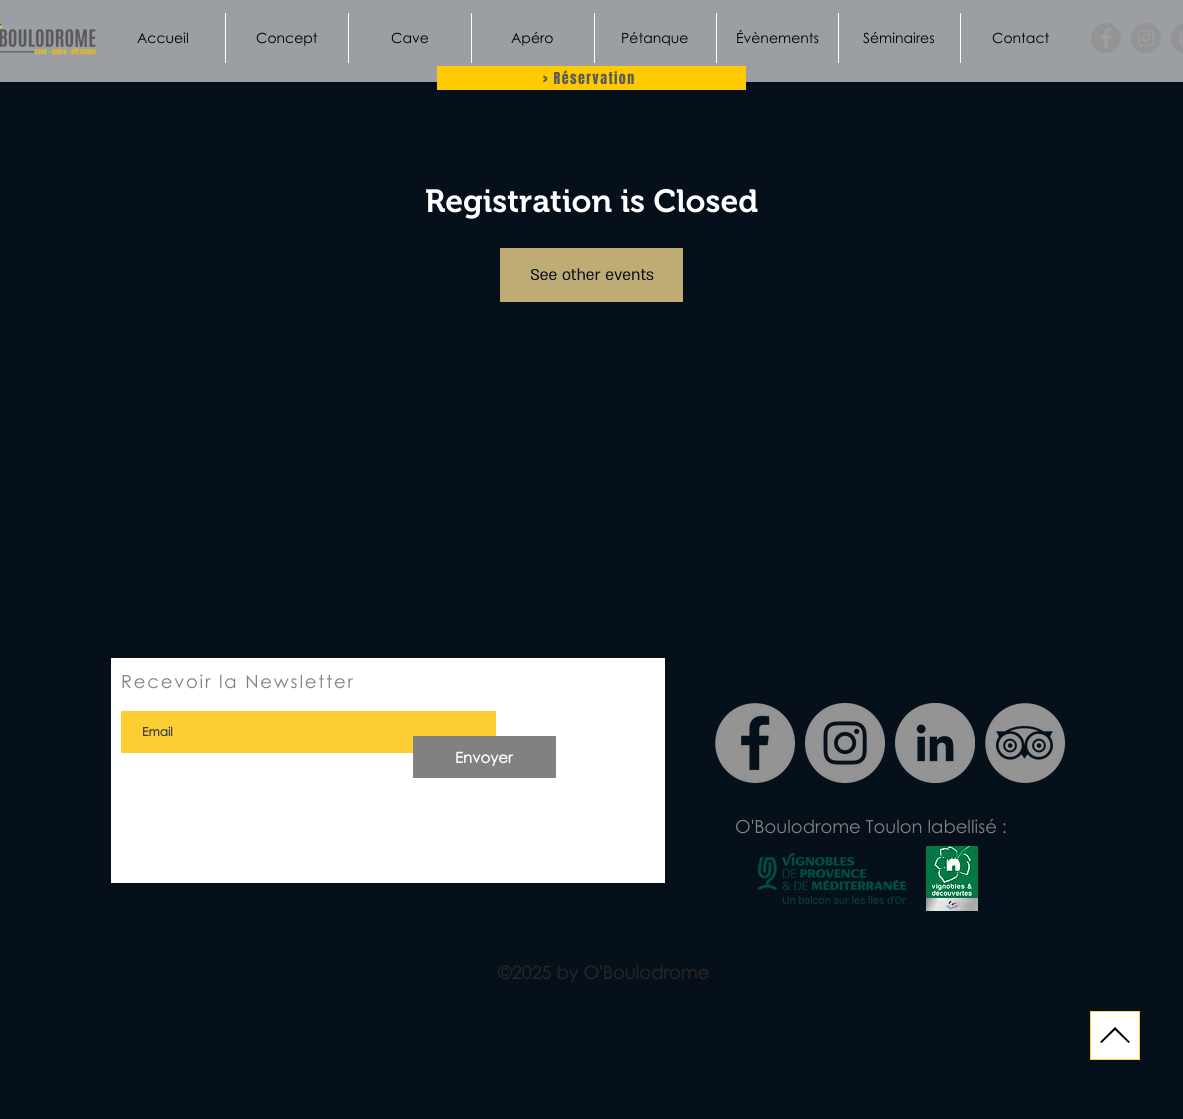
#include <cairo.h>
#include <math.h>
#include <stddef.h>


static void set_color(cairo_t *cr, unsigned color) {
    cairo_set_source_rgb(cr, (color >> 16) / 255.0, (color >> 8 & 255) / 255.0, (color & 255) / 255.0);
}

static void draw_text(cairo_t *cr, double x, double y, const char *s, const char *family, double size, int italic, int bold, unsigned color) {
    cairo_select_font_face(cr, family, italic ? CAIRO_FONT_SLANT_ITALIC : CAIRO_FONT_SLANT_NORMAL,
        bold ? CAIRO_FONT_WEIGHT_BOLD : CAIRO_FONT_WEIGHT_NORMAL);
    cairo_set_font_size(cr, size);
    set_color(cr, color);
    cairo_move_to(cr, x, y);
    cairo_show_text(cr, s);
}

static void draw_spaced(cairo_t *cr, double x, double y, const char *s, double letter, double word) {
    cairo_move_to(cr, x, y);
    while (*s) {
        char ch[5] = {0};
        int n = 0;
        do ch[n++] = *s++; while ((*s & 0xC0) == 0x80);
        cairo_show_text(cr, ch);
        cairo_rel_move_to(cr, letter + word * (*ch == ' '), 0);
    }
}

static void fill_rect(cairo_t *cr, double x, double y, double w, double h, unsigned color) {
    set_color(cr, color);
    cairo_rectangle(cr, x, y, w, h);
    cairo_fill(cr);
}

static void rounded_rect(cairo_t *cr, double x, double y, double w, double h, double r) {
    cairo_new_sub_path(cr);
    cairo_arc(cr, x + w - r, y + h - r, r, 0, M_PI / 2);
    cairo_arc(cr, x + r, y + h - r, r, M_PI / 2, M_PI);
    cairo_arc(cr, x + r, y + r, r, M_PI, 1.5 * M_PI);
    cairo_arc(cr, x + w - r, y + r, r, 1.5 * M_PI, 2 * M_PI);
    cairo_close_path(cr);
}

static void draw_shadow(cairo_t *cr, double x, double y, double w, double h, double r, double blur, double alpha) {
    cairo_push_group_with_content(cr, CAIRO_CONTENT_ALPHA);
    cairo_set_operator(cr, CAIRO_OPERATOR_SOURCE);
    for (int i = 15; i >= -15 && fmin(w, h) + blur * i / 3 > 0; i -= 2) {
        double e = blur * i / 6;
        cairo_set_source_rgba(cr, 0, 0, 0, alpha * erfc((i - 1) / 8.5) / 2);
        rounded_rect(cr, x - e, y - e, w + 2 * e, h + 2 * e, fmax(0, fmin(r + e + blur * .6, fmin(w, h) / 2 + e)));
        cairo_fill(cr);
    }
    cairo_pattern_t *soft = cairo_pop_group(cr);
    cairo_mask(cr, soft);
    cairo_pattern_destroy(soft);
}

static void draw_image(cairo_t *cr, const char *path, double x, double y, double w, double h) {
    cairo_surface_t *image = cairo_image_surface_create_from_png(path);
    cairo_save(cr);
    cairo_set_source_surface(cr, image, x, y);
    cairo_rectangle(cr, x, y, w, h);
    cairo_fill(cr);
    cairo_restore(cr);
    cairo_surface_destroy(image);
}

int main(void) {
    cairo_surface_t *surface = cairo_image_surface_create(CAIRO_FORMAT_RGB24, 1183, 1119);
    cairo_t *cr = cairo_create(surface);
    cairo_font_options_t *options = cairo_font_options_create();
    cairo_font_options_set_hint_metrics(options, CAIRO_HINT_METRICS_OFF);
    cairo_font_options_set_hint_style(options, CAIRO_HINT_STYLE_NONE);
    cairo_set_font_options(cr, options);
    cairo_set_miter_limit(cr, 4);
    set_color(cr, 0x06101B);
    cairo_paint(cr);
    set_color(cr, 0x000000);
    draw_shadow(cr, 0, 0, 1183, 82, 0, 2.5, 0.7);
    fill_rect(cr, 0, 0, 1183, 82, 0x9B9FA4);
    draw_image(cr, "assets/img1.png", 0, 23, 96, 33);
    draw_text(cr, 137, 43, "Accueil", "Century Gothic", 14, 0, 0, 0x000000);
    fill_rect(cr, 225, 13, 1, 50, 0xFFFFFF);
    draw_text(cr, 256, 43, "Concept", "Century Gothic", 14, 0, 0, 0x000000);
    fill_rect(cr, 348, 13, 1, 50, 0xFFFFFF);
    draw_text(cr, 391, 43, "Cave", "Century Gothic", 14, 0, 0, 0x000000);
    fill_rect(cr, 471, 13, 1, 50, 0xFFFFFF);
    draw_text(cr, 511, 43, "Apéro", "Century Gothic", 14, 0, 0, 0x000000);
    fill_rect(cr, 594, 13, 1, 50, 0xFFFFFF);
    draw_text(cr, 621, 43, "Pétanque", "Century Gothic", 14, 0, 0, 0x000000);
    fill_rect(cr, 716, 13, 1, 50, 0xFFFFFF);
    draw_text(cr, 736, 43, "Évènements", "Century Gothic", 14, 0, 0, 0x000000);
    fill_rect(cr, 838, 13, 1, 50, 0xFFFFFF);
    draw_text(cr, 863, 43, "Séminaires", "Century Gothic", 14, 0, 0, 0x000000);
    fill_rect(cr, 960, 13, 1, 50, 0xFFFFFF);
    draw_text(cr, 992, 43, "Contact", "Century Gothic", 14, 0, 0, 0x000000);
    draw_image(cr, "assets/img2.png", 1091, 23, 30, 30);
    draw_image(cr, "assets/img3.png", 1131, 23, 30, 30);
    draw_image(cr, "assets/img4.png", 1171, 23, 12, 30);
    fill_rect(cr, 437, 66, 309, 24, 0xFFCA00);
    cairo_select_font_face(cr, "Anton", CAIRO_FONT_SLANT_NORMAL, CAIRO_FONT_WEIGHT_NORMAL);
    set_color(cr, 0x5A5A5A);
    draw_spaced(cr, 543, 84, "> Réservation", 1.4, 0);
    draw_text(cr, 425, 212, "Registration is Closed", "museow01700 SemiBold", 32, 0, 0, 0xFFFFFF);
    fill_rect(cr, 500, 248, 183, 54, 0xBEAC74);
    draw_text(cr, 530, 280, "See other events", "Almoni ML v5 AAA", 18, 0, 0, 0x06101B);
    fill_rect(cr, 111, 658, 554, 225, 0xFFFFFF);
    cairo_select_font_face(cr, "Century Gothic", CAIRO_FONT_SLANT_NORMAL, CAIRO_FONT_WEIGHT_NORMAL);
    set_color(cr, 0x818181);
    draw_spaced(cr, 121, 688, "Recevoir la Newsletter", 1.8, 0);
    fill_rect(cr, 121, 711, 375, 42, 0xFCCE32);
    draw_text(cr, 142, 736, "Email", "Century Gothic", 12, 0, 1, 0x373B4D);
    fill_rect(cr, 413, 736, 143, 42, 0x818181);
    draw_text(cr, 455, 763, "Envoyer", "Century Gothic", 15, 0, 1, 0xFFFFFF);
    draw_image(cr, "assets/img5.png", 715, 703, 80, 80);
    draw_image(cr, "assets/img6.png", 805, 703, 80, 80);
    draw_image(cr, "assets/img7.png", 895, 703, 80, 80);
    draw_image(cr, "assets/img8.png", 985, 703, 80, 80);
    draw_text(cr, 735, 833, "O'Boulodrome Toulon labellisé :", "Century Gothic", 18, 0, 0, 0x818181);
    draw_image(cr, "assets/img9.png", 757, 853, 150, 51);
    draw_image(cr, "assets/img10.png", 926, 846, 52, 65);
    draw_text(cr, 498, 979, "©2025 by O'Boulodrome", "Century Gothic", 18, 0, 1, 0x242323);
    set_color(cr, 0xFFFFFF);
    cairo_rectangle(cr, 1090.5, 1011.5, 49, 48);
    cairo_fill_preserve(cr);
    set_color(cr, 0xFFD536);
    cairo_set_line_width(cr, 1);
    cairo_stroke(cr);
    set_color(cr, 0x000000);
    cairo_new_path(cr);
    cairo_move_to(cr, 1100, 1042);
    cairo_line_to(cr, 1101.5, 1043);
    cairo_line_to(cr, 1115, 1030);
    cairo_line_to(cr, 1128.5, 1043);
    cairo_line_to(cr, 1130, 1042);
    cairo_line_to(cr, 1115, 1027);
    cairo_close_path(cr);
    cairo_fill(cr);
    cairo_surface_write_to_png(surface, "output.png");
    cairo_font_options_destroy(options);
    cairo_destroy(cr);
    cairo_surface_destroy(surface);
    return 0;
}
